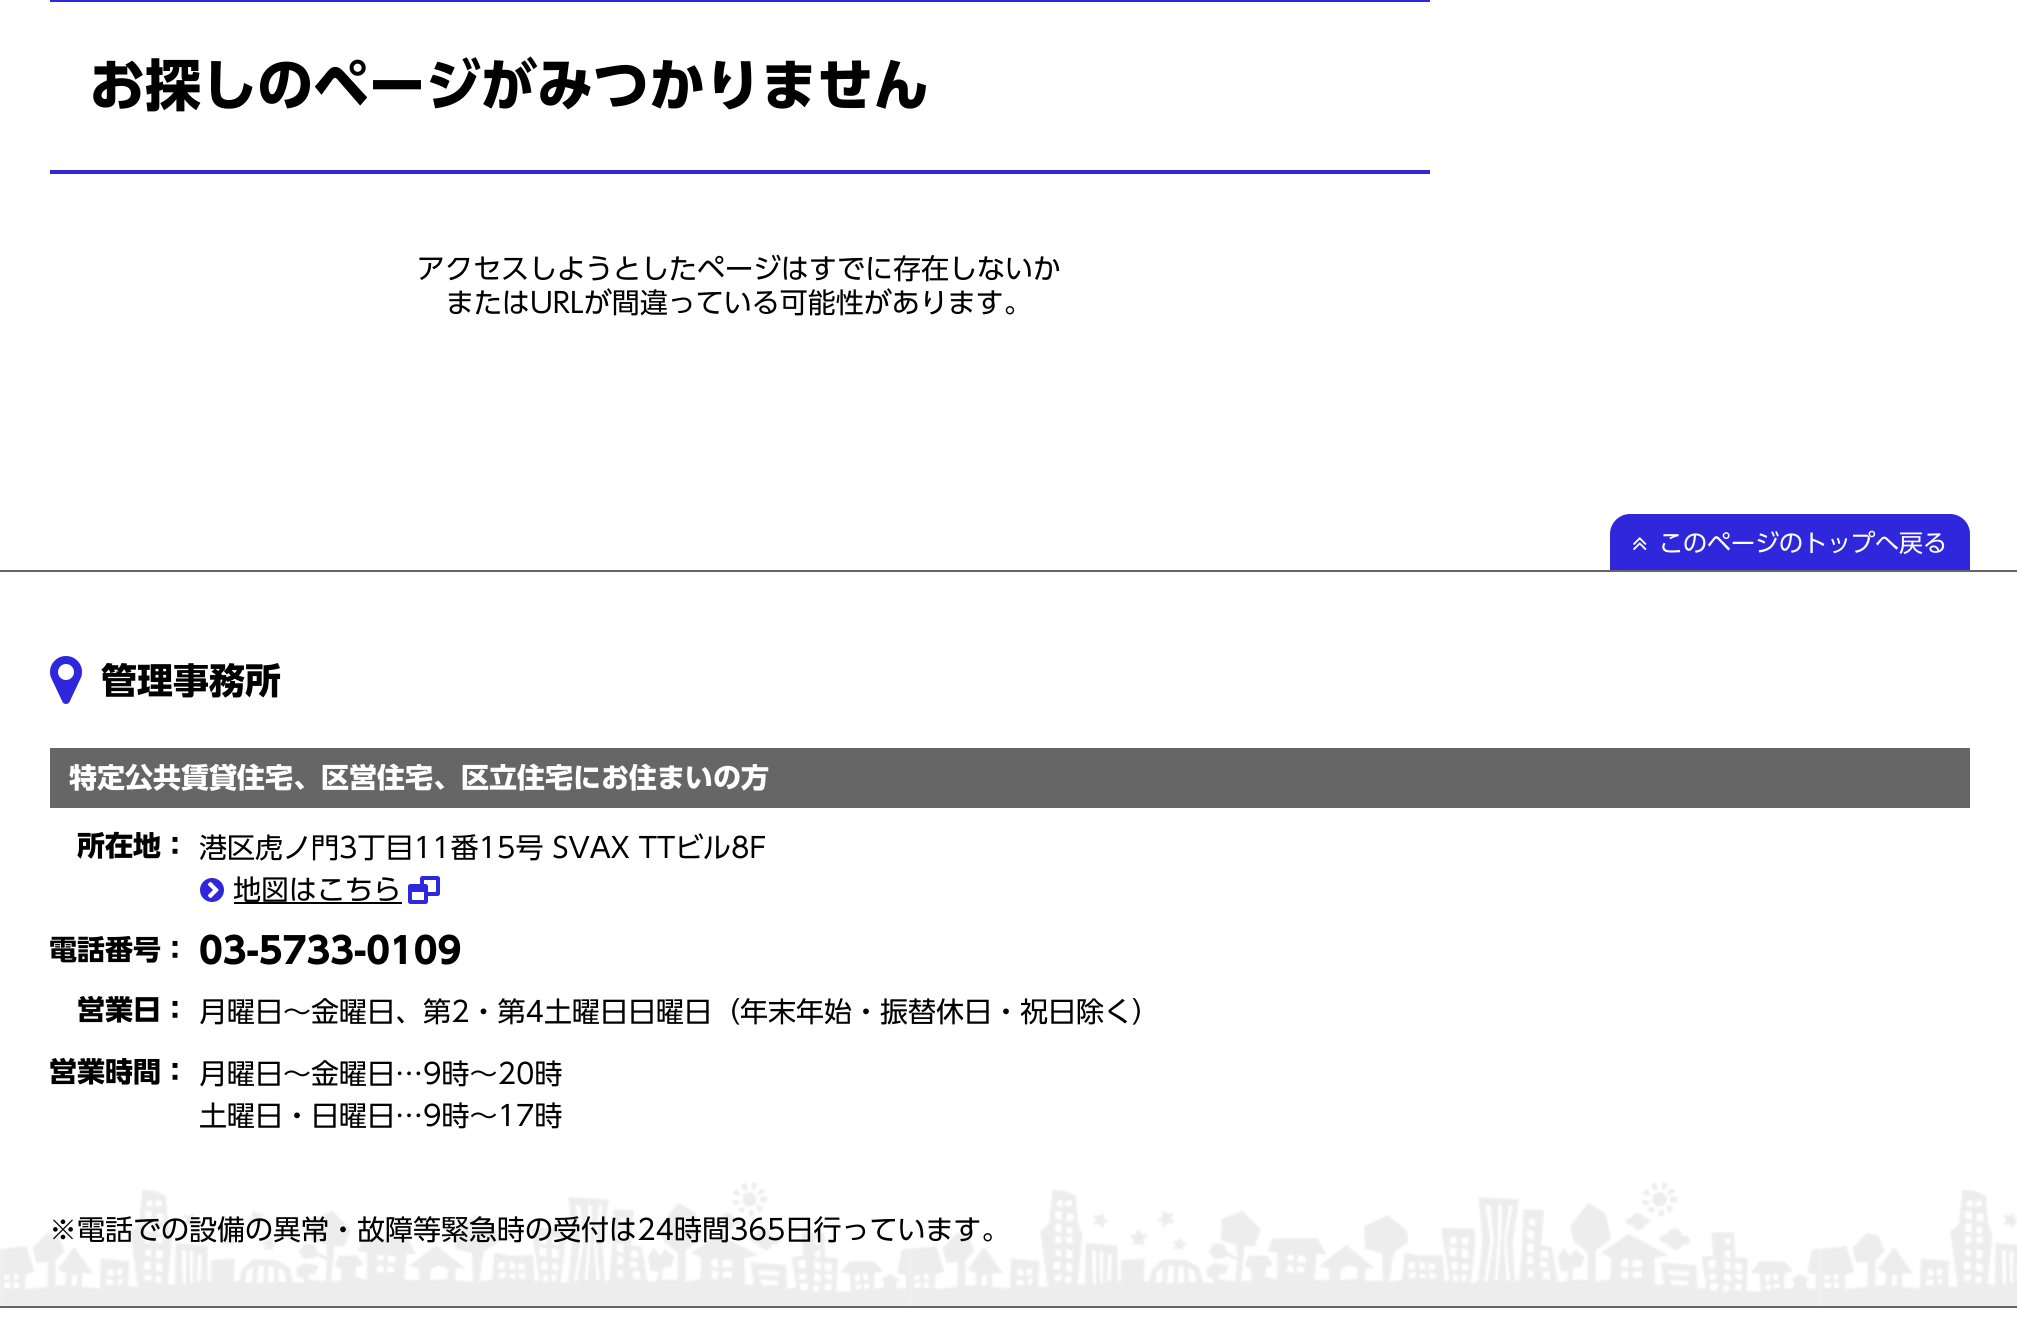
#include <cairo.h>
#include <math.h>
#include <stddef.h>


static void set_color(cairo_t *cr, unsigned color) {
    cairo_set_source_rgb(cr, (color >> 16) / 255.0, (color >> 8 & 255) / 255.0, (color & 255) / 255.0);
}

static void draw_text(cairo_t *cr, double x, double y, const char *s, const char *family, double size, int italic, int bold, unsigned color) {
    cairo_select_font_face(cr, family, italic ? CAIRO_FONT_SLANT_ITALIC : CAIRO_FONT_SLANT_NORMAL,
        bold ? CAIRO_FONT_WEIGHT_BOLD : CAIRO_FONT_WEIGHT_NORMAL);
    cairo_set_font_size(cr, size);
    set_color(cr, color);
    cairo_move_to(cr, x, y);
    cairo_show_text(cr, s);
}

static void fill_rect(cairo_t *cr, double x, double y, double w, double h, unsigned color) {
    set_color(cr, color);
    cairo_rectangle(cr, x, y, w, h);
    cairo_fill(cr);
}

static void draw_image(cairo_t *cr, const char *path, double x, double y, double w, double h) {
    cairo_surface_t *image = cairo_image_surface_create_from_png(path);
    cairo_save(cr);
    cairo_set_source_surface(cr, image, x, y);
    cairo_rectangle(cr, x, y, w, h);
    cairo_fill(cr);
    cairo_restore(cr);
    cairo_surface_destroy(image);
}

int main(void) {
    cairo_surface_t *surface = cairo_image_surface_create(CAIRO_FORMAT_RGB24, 2017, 1335);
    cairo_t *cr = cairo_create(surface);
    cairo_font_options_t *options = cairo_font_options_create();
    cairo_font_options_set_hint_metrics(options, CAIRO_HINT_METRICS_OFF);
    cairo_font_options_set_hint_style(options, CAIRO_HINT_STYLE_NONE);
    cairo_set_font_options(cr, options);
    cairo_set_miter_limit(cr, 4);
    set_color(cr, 0xFFFFFF);
    cairo_paint(cr);
    fill_rect(cr, 50, 0, 1380, 2, 0x2F27DB);
    fill_rect(cr, 50, 170, 1380, 4, 0x2F27DB);
    draw_text(cr, 89, 106, "お探しのページがみつかりません", "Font", 56, 0, 1, 0x000000);
    draw_text(cr, 417, 279, "アクセスしようとしたページはすでに存在しないか", "Font", 28, 0, 0, 0x000000);
    draw_text(cr, 446, 313, "またはURLが間違っている可能性があります。", "Font", 28, 0, 0, 0x000000);
    fill_rect(cr, 0, 570, 2017, 2, 0x666666);
    draw_image(cr, "assets/img1.png", 0, 1182, 2017, 124);
    fill_rect(cr, 0, 1306, 2017, 2, 0x666666);
    set_color(cr, 0x2F27DB);
    cairo_new_path(cr);
    cairo_move_to(cr, 1630, 514);
    cairo_line_to(cr, 1950, 514);
    cairo_curve_to(cr, 1961, 514, 1970, 523, 1970, 534);
    cairo_line_to(cr, 1970, 570);
    cairo_line_to(cr, 1610, 570);
    cairo_line_to(cr, 1610, 534);
    cairo_curve_to(cr, 1610, 523, 1619, 514, 1630, 514);
    cairo_close_path(cr);
    cairo_fill(cr);
    draw_image(cr, "assets/img2.png", 1633, 537, 14, 14);
    draw_text(cr, 1659, 552, "このページのトップへ戻る", "Font", 24, 0, 0, 0xFFFFFF);
    draw_image(cr, "assets/img3.png", 50, 656, 32, 48);
    draw_text(cr, 101, 694, "管理事務所", "Font", 36, 0, 1, 0x000000);
    fill_rect(cr, 50, 748, 1920, 60, 0x666666);
    draw_text(cr, 69, 788, "特定公共賃貸住宅、区営住宅、区立住宅にお住まいの方", "Font", 28, 0, 1, 0xFFFFFF);
    draw_text(cr, 77, 856, "所在地：", "Font", 28, 0, 1, 0x000000);
    draw_text(cr, 199, 858, "港区虎ノ門3丁目11番15号 SVAX TTビル8F", "Font", 28, 0, 0, 0x000000);
    draw_image(cr, "assets/img4.png", 200, 878, 24, 24);
    draw_text(cr, 233, 900, "地図はこちら", "Font", 28, 0, 0, 0x000000);
    fill_rect(cr, 234, 902, 168, 2, 0x000000);
    draw_image(cr, "assets/img5.png", 408, 876, 32, 28);
    draw_text(cr, 49, 960, "電話番号：", "Font", 28, 0, 1, 0x000000);
    draw_text(cr, 199, 964, "03-5733-0109", "Font", 36, 0, 1, 0x000000);
    draw_text(cr, 77, 1020, "営業日：", "Font", 28, 0, 1, 0x000000);
    draw_text(cr, 199, 1022, "月曜日～金曜日、第2・第4土曜日日曜日（年末年始・振替休日・祝日除く）", "Font", 28, 0, 0, 0x000000);
    draw_text(cr, 49, 1082, "営業時間：", "Font", 28, 0, 1, 0x000000);
    draw_text(cr, 199, 1084, "月曜日～金曜日…9時～20時", "Font", 28, 0, 0, 0x000000);
    draw_text(cr, 199, 1126, "土曜日・日曜日…9時～17時", "Font", 28, 0, 0, 0x000000);
    draw_text(cr, 49, 1240, "※電話での設備の異常・故障等緊急時の受付は24時間365日行っています。", "Font", 28, 0, 0, 0x000000);
    cairo_surface_write_to_png(surface, "output.png");
    cairo_font_options_destroy(options);
    cairo_destroy(cr);
    cairo_surface_destroy(surface);
    return 0;
}
